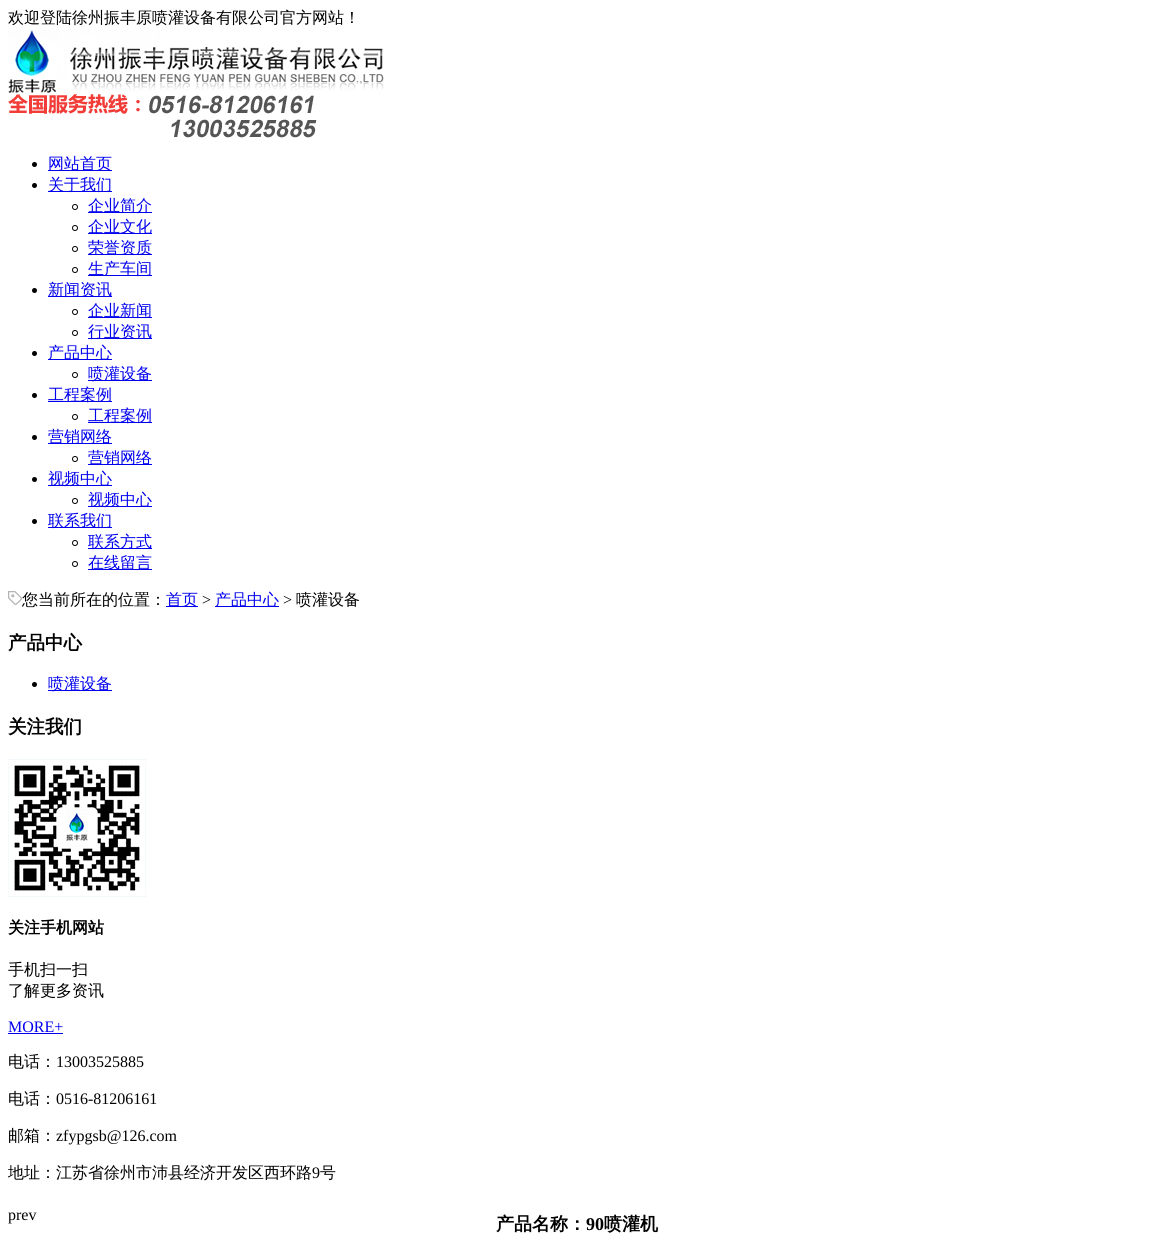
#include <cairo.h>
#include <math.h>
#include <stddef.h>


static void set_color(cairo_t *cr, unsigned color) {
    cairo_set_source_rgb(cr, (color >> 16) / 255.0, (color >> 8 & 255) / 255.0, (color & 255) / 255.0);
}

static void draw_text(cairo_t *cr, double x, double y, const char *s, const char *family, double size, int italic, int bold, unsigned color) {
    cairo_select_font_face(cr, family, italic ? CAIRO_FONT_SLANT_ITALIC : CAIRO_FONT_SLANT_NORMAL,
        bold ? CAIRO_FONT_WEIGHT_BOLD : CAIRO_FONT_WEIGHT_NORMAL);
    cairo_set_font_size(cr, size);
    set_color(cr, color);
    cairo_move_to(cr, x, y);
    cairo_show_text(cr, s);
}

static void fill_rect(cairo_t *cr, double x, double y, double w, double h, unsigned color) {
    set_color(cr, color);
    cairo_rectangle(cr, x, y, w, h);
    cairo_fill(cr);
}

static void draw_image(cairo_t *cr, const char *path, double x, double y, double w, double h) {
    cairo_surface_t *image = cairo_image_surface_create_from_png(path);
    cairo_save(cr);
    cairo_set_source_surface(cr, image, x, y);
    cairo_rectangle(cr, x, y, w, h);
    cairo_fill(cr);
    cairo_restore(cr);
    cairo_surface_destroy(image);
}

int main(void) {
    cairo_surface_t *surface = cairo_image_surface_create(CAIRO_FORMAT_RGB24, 1163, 1240);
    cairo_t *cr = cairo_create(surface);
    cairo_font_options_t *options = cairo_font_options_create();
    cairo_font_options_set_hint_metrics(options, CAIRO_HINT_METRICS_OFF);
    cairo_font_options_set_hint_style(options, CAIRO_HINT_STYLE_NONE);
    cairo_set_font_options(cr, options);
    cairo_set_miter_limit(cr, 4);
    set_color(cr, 0xFFFFFF);
    cairo_paint(cr);
    draw_text(cr, 8, 23, "欢迎登陆徐州振丰原喷灌设备有限公司官方网站！", "WenQuanYi Zen Hei Medium", 16, 0, 0, 0x000000);
    draw_image(cr, "assets/img1.png", 8, 30, 376, 63);
    draw_image(cr, "assets/img2.png", 8, 94, 309, 44);
    cairo_arc(cr, 34.5, 164.5, 2.5, 0, 2 * M_PI);
    cairo_fill(cr);
    fill_rect(cr, 48, 170, 64, 1, 0x0000EE);
    draw_text(cr, 48, 169, "网站首页", "WenQuanYi Zen Hei Medium", 16, 0, 0, 0x0000EE);
    set_color(cr, 0x000000);
    cairo_new_path(cr);
    cairo_arc(cr, 34.5, 185.5, 2.5, 0, 2 * M_PI);
    cairo_fill(cr);
    fill_rect(cr, 48, 191, 64, 1, 0x0000EE);
    draw_text(cr, 48, 190, "关于我们", "WenQuanYi Zen Hei Medium", 16, 0, 0, 0x0000EE);
    cairo_new_path(cr);
    cairo_arc(cr, 75, 207, 2.5, 0, 2 * M_PI);
    set_color(cr, 0x000000);
    cairo_set_line_width(cr, 1);
    cairo_stroke(cr);
    fill_rect(cr, 88, 212, 64, 1, 0x0000EE);
    draw_text(cr, 88, 211, "企业简介", "WenQuanYi Zen Hei Medium", 16, 0, 0, 0x0000EE);
    cairo_new_path(cr);
    cairo_arc(cr, 75, 228, 2.5, 0, 2 * M_PI);
    set_color(cr, 0x000000);
    cairo_stroke(cr);
    fill_rect(cr, 88, 233, 64, 1, 0x0000EE);
    draw_text(cr, 88, 232, "企业文化", "WenQuanYi Zen Hei Medium", 16, 0, 0, 0x0000EE);
    cairo_new_path(cr);
    cairo_arc(cr, 75, 249, 2.5, 0, 2 * M_PI);
    set_color(cr, 0x000000);
    cairo_stroke(cr);
    fill_rect(cr, 88, 254, 64, 1, 0x0000EE);
    draw_text(cr, 88, 253, "荣誉资质", "WenQuanYi Zen Hei Medium", 16, 0, 0, 0x0000EE);
    cairo_new_path(cr);
    cairo_arc(cr, 75, 270, 2.5, 0, 2 * M_PI);
    set_color(cr, 0x000000);
    cairo_stroke(cr);
    fill_rect(cr, 88, 275, 64, 1, 0x0000EE);
    draw_text(cr, 88, 274, "生产车间", "WenQuanYi Zen Hei Medium", 16, 0, 0, 0x0000EE);
    set_color(cr, 0x000000);
    cairo_new_path(cr);
    cairo_arc(cr, 34.5, 290.5, 2.5, 0, 2 * M_PI);
    cairo_fill(cr);
    fill_rect(cr, 48, 296, 64, 1, 0x0000EE);
    draw_text(cr, 48, 295, "新闻资讯", "WenQuanYi Zen Hei Medium", 16, 0, 0, 0x0000EE);
    cairo_new_path(cr);
    cairo_arc(cr, 75, 312, 2.5, 0, 2 * M_PI);
    set_color(cr, 0x000000);
    cairo_stroke(cr);
    fill_rect(cr, 88, 317, 64, 1, 0x0000EE);
    draw_text(cr, 88, 316, "企业新闻", "WenQuanYi Zen Hei Medium", 16, 0, 0, 0x0000EE);
    cairo_new_path(cr);
    cairo_arc(cr, 75, 333, 2.5, 0, 2 * M_PI);
    set_color(cr, 0x000000);
    cairo_stroke(cr);
    fill_rect(cr, 88, 338, 64, 1, 0x0000EE);
    draw_text(cr, 88, 337, "行业资讯", "WenQuanYi Zen Hei Medium", 16, 0, 0, 0x0000EE);
    set_color(cr, 0x000000);
    cairo_new_path(cr);
    cairo_arc(cr, 34.5, 353.5, 2.5, 0, 2 * M_PI);
    cairo_fill(cr);
    fill_rect(cr, 48, 359, 64, 1, 0x0000EE);
    draw_text(cr, 48, 358, "产品中心", "WenQuanYi Zen Hei Medium", 16, 0, 0, 0x0000EE);
    cairo_new_path(cr);
    cairo_arc(cr, 75, 375, 2.5, 0, 2 * M_PI);
    set_color(cr, 0x000000);
    cairo_stroke(cr);
    fill_rect(cr, 88, 380, 64, 1, 0x0000EE);
    draw_text(cr, 88, 379, "喷灌设备", "WenQuanYi Zen Hei Medium", 16, 0, 0, 0x0000EE);
    set_color(cr, 0x000000);
    cairo_new_path(cr);
    cairo_arc(cr, 34.5, 395.5, 2.5, 0, 2 * M_PI);
    cairo_fill(cr);
    fill_rect(cr, 48, 401, 64, 1, 0x0000EE);
    draw_text(cr, 48, 400, "工程案例", "WenQuanYi Zen Hei Medium", 16, 0, 0, 0x0000EE);
    cairo_new_path(cr);
    cairo_arc(cr, 75, 417, 2.5, 0, 2 * M_PI);
    set_color(cr, 0x000000);
    cairo_stroke(cr);
    fill_rect(cr, 88, 422, 64, 1, 0x0000EE);
    draw_text(cr, 88, 421, "工程案例", "WenQuanYi Zen Hei Medium", 16, 0, 0, 0x0000EE);
    set_color(cr, 0x000000);
    cairo_new_path(cr);
    cairo_arc(cr, 34.5, 437.5, 2.5, 0, 2 * M_PI);
    cairo_fill(cr);
    fill_rect(cr, 48, 443, 64, 1, 0x0000EE);
    draw_text(cr, 48, 442, "营销网络", "WenQuanYi Zen Hei Medium", 16, 0, 0, 0x0000EE);
    cairo_new_path(cr);
    cairo_arc(cr, 75, 459, 2.5, 0, 2 * M_PI);
    set_color(cr, 0x000000);
    cairo_stroke(cr);
    fill_rect(cr, 88, 464, 64, 1, 0x0000EE);
    draw_text(cr, 88, 463, "营销网络", "WenQuanYi Zen Hei Medium", 16, 0, 0, 0x0000EE);
    set_color(cr, 0x000000);
    cairo_new_path(cr);
    cairo_arc(cr, 34.5, 479.5, 2.5, 0, 2 * M_PI);
    cairo_fill(cr);
    fill_rect(cr, 48, 485, 64, 1, 0x0000EE);
    draw_text(cr, 48, 484, "视频中心", "WenQuanYi Zen Hei Medium", 16, 0, 0, 0x0000EE);
    cairo_new_path(cr);
    cairo_arc(cr, 75, 501, 2.5, 0, 2 * M_PI);
    set_color(cr, 0x000000);
    cairo_stroke(cr);
    fill_rect(cr, 88, 506, 64, 1, 0x0000EE);
    draw_text(cr, 88, 505, "视频中心", "WenQuanYi Zen Hei Medium", 16, 0, 0, 0x0000EE);
    set_color(cr, 0x000000);
    cairo_new_path(cr);
    cairo_arc(cr, 34.5, 521.5, 2.5, 0, 2 * M_PI);
    cairo_fill(cr);
    fill_rect(cr, 48, 527, 64, 1, 0x0000EE);
    draw_text(cr, 48, 526, "联系我们", "WenQuanYi Zen Hei Medium", 16, 0, 0, 0x0000EE);
    cairo_new_path(cr);
    cairo_arc(cr, 75, 543, 2.5, 0, 2 * M_PI);
    set_color(cr, 0x000000);
    cairo_stroke(cr);
    fill_rect(cr, 88, 548, 64, 1, 0x0000EE);
    draw_text(cr, 88, 547, "联系方式", "WenQuanYi Zen Hei Medium", 16, 0, 0, 0x0000EE);
    cairo_new_path(cr);
    cairo_arc(cr, 75, 564, 2.5, 0, 2 * M_PI);
    set_color(cr, 0x000000);
    cairo_stroke(cr);
    fill_rect(cr, 88, 569, 64, 1, 0x0000EE);
    draw_text(cr, 88, 568, "在线留言", "WenQuanYi Zen Hei Medium", 16, 0, 0, 0x0000EE);
    draw_image(cr, "assets/img3.png", 8, 591, 14, 14);
    draw_text(cr, 22, 605, "您当前所在的位置：", "WenQuanYi Zen Hei Medium", 16, 0, 0, 0x000000);
    fill_rect(cr, 166, 606, 32, 1, 0x0000EE);
    draw_text(cr, 166, 605, "首页", "WenQuanYi Zen Hei Medium", 16, 0, 0, 0x0000EE);
    draw_text(cr, 202, 605, ">", "Liberation Serif", 16, 0, 0, 0x000000);
    fill_rect(cr, 215, 606, 64, 1, 0x0000EE);
    draw_text(cr, 215, 605, "产品中心", "WenQuanYi Zen Hei Medium", 16, 0, 0, 0x0000EE);
    draw_text(cr, 283, 605, ">", "Liberation Serif", 16, 0, 0, 0x000000);
    draw_text(cr, 296, 605, "喷灌设备", "WenQuanYi Zen Hei Medium", 16, 0, 0, 0x000000);
    draw_text(cr, 8, 649, "产品中心", "WenQuanYi Zen Hei", 18.5, 0, 1, 0x000000);
    cairo_new_path(cr);
    cairo_arc(cr, 34.5, 684.5, 2.5, 0, 2 * M_PI);
    cairo_fill(cr);
    fill_rect(cr, 48, 690, 64, 1, 0x0000EE);
    draw_text(cr, 48, 689, "喷灌设备", "WenQuanYi Zen Hei Medium", 16, 0, 0, 0x0000EE);
    draw_text(cr, 8, 733, "关注我们", "WenQuanYi Zen Hei", 18.5, 0, 1, 0x000000);
    draw_image(cr, "assets/img4.png", 8, 759, 138, 138);
    draw_text(cr, 8, 933, "关注手机网站", "WenQuanYi Zen Hei", 16, 0, 1, 0x000000);
    draw_text(cr, 8, 975, "手机扫一扫", "WenQuanYi Zen Hei Medium", 16, 0, 0, 0x000000);
    draw_text(cr, 8, 996, "了解更多资讯", "WenQuanYi Zen Hei Medium", 16, 0, 0, 0x000000);
    draw_text(cr, 8, 1032, "MORE+", "Liberation Serif", 16, 0, 0, 0x0000EE);
    fill_rect(cr, 8, 1033, 55, 1, 0x0000EE);
    draw_text(cr, 8, 1067, "电话：", "WenQuanYi Zen Hei Medium", 16, 0, 0, 0x000000);
    draw_text(cr, 56, 1067, "13003525885", "Liberation Serif", 16, 0, 0, 0x000000);
    draw_text(cr, 8, 1104, "电话：", "WenQuanYi Zen Hei Medium", 16, 0, 0, 0x000000);
    draw_text(cr, 56, 1104, "0516-81206161", "Liberation Serif", 16, 0, 0, 0x000000);
    draw_text(cr, 8, 1141, "邮箱：", "WenQuanYi Zen Hei Medium", 16, 0, 0, 0x000000);
    draw_text(cr, 56, 1141, "zfypgsb@126.com", "Liberation Serif", 16, 0, 0, 0x000000);
    draw_text(cr, 8, 1178, "地址：江苏省徐州市沛县经济开发区西环路", "WenQuanYi Zen Hei Medium", 16, 0, 0, 0x000000);
    draw_text(cr, 312, 1178, "9", "Liberation Serif", 16, 0, 0, 0x000000);
    draw_text(cr, 320, 1178, "号", "WenQuanYi Zen Hei Medium", 16, 0, 0, 0x000000);
    draw_text(cr, 8, 1220, "prev", "Liberation Serif", 16, 0, 0, 0x000000);
    draw_text(cr, 496, 1230, "产品名称：", "WenQuanYi Zen Hei", 18, 0, 1, 0x000000);
    draw_text(cr, 586, 1230, "90", "Liberation Serif", 18, 0, 1, 0x000000);
    draw_text(cr, 604, 1230, "喷灌机", "WenQuanYi Zen Hei", 18, 0, 1, 0x000000);
    cairo_surface_write_to_png(surface, "output.png");
    cairo_font_options_destroy(options);
    cairo_destroy(cr);
    cairo_surface_destroy(surface);
    return 0;
}
